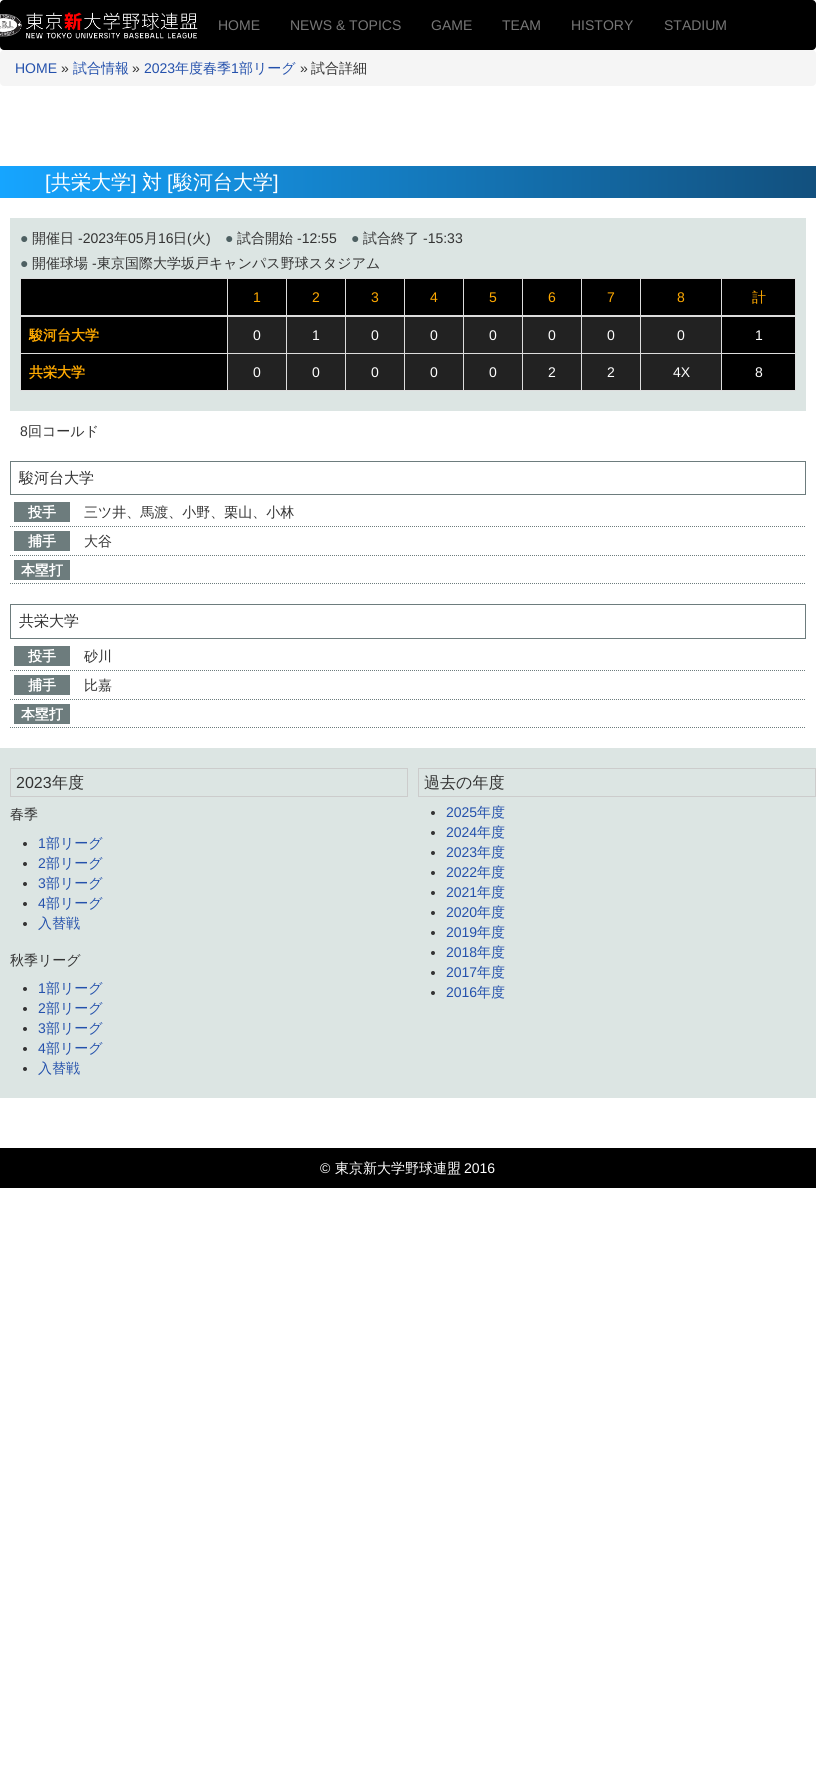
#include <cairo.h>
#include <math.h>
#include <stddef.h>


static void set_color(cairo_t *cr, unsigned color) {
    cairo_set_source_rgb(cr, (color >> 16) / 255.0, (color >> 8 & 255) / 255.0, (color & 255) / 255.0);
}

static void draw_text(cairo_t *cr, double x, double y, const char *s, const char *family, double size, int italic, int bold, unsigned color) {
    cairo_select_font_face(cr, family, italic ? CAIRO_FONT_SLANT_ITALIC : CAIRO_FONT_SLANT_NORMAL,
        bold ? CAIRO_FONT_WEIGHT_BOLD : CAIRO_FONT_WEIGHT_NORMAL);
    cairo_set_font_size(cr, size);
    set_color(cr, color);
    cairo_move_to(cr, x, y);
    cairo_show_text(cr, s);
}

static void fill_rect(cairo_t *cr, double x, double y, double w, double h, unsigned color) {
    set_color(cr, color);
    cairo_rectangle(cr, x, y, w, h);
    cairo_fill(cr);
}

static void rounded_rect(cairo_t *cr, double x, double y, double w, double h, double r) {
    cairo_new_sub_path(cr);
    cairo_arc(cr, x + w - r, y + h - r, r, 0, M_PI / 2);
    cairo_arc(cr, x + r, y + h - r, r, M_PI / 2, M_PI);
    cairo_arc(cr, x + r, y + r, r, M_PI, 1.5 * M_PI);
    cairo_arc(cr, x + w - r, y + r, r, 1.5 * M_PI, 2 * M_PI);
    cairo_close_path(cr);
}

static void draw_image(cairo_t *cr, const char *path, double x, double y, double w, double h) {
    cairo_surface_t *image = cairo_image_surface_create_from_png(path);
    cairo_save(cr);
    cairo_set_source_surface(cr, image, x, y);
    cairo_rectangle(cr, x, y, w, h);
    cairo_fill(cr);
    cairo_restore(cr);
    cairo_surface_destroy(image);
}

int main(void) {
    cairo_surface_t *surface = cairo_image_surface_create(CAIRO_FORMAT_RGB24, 816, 1771);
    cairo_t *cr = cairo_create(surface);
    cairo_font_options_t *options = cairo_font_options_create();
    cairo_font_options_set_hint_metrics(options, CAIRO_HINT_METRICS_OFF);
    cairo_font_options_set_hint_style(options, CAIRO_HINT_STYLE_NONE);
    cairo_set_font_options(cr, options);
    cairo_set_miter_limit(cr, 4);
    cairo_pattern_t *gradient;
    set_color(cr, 0xFFFFFF);
    cairo_paint(cr);
    set_color(cr, 0x000000);
    rounded_rect(cr, 0, 0, 816, 50, 4);
    cairo_fill(cr);
    draw_image(cr, "assets/img1.png", 0, 12, 198, 27);
    draw_text(cr, 218, 30, "HOME", "Liberation Sans", 14, 0, 0, 0x777777);
    draw_text(cr, 290, 30, "NEWS & TOPICS", "Liberation Sans", 14, 0, 0, 0x777777);
    draw_text(cr, 431, 30, "GAME", "Liberation Sans", 14, 0, 0, 0x777777);
    draw_text(cr, 502, 30, "TEAM", "Liberation Sans", 14, 0, 0, 0x777777);
    draw_text(cr, 571, 30, "HISTORY", "Liberation Sans", 14, 0, 0, 0x777777);
    draw_text(cr, 664, 30, "STADIUM", "Liberation Sans", 14, 0, 0, 0x777777);
    set_color(cr, 0xF5F5F5);
    rounded_rect(cr, 0, 50, 816, 36, 4);
    cairo_fill(cr);
    draw_text(cr, 15, 73, "HOME", "Liberation Sans", 14, 0, 0, 0x2451AC);
    draw_text(cr, 61, 73, "»", "Liberation Sans", 14, 0, 0, 0x333333);
    draw_text(cr, 73, 73, "試合情報", "WenQuanYi Zen Hei Medium", 14, 0, 0, 0x2451AC);
    draw_text(cr, 132, 73, "»", "Liberation Sans", 14, 0, 0, 0x333333);
    draw_text(cr, 144, 73, "2023", "Liberation Sans", 14, 0, 0, 0x2451AC);
    draw_text(cr, 175, 73, "年度春季", "WenQuanYi Zen Hei Medium", 14, 0, 0, 0x2451AC);
    draw_text(cr, 231, 73, "1", "Liberation Sans", 14, 0, 0, 0x2451AC);
    draw_text(cr, 239, 73, "部リーグ", "WenQuanYi Zen Hei Medium", 14, 0, 0, 0x2451AC);
    draw_text(cr, 300, 73, "»", "Liberation Sans", 14, 0, 0, 0x333333);
    draw_text(cr, 311, 73, "試合詳細", "WenQuanYi Zen Hei Medium", 14, 0, 0, 0x333333);
    gradient = cairo_pattern_create_linear(0, 182, 816, 182);
    cairo_pattern_add_color_stop_rgba(gradient, 0, 0.086, 0.647, 1, 1);
    cairo_pattern_add_color_stop_rgba(gradient, 1, 0.071, 0.314, 0.494, 1);
    cairo_set_source(cr, gradient);
    cairo_pattern_destroy(gradient);
    cairo_rectangle(cr, 0, 166, 816, 32);
    cairo_fill(cr);
    draw_text(cr, 45, 189, "[", "Liberation Sans", 20, 0, 0, 0xFFFFFF);
    draw_text(cr, 51, 189, "共栄大学", "WenQuanYi Zen Hei Medium", 20, 0, 0, 0xFFFFFF);
    draw_text(cr, 131, 189, "]", "Liberation Sans", 20, 0, 0, 0xFFFFFF);
    draw_text(cr, 142, 189, "対", "WenQuanYi Zen Hei Medium", 20, 0, 0, 0xFFFFFF);
    draw_text(cr, 167, 189, "[", "Liberation Sans", 20, 0, 0, 0xFFFFFF);
    draw_text(cr, 173, 189, "駿河台大学", "WenQuanYi Zen Hei Medium", 20, 0, 0, 0xFFFFFF);
    draw_text(cr, 273, 189, "]", "Liberation Sans", 20, 0, 0, 0xFFFFFF);
    fill_rect(cr, 10, 218, 796, 193, 0xDCE5E3);
    draw_text(cr, 20, 243, "●", "Liberation Sans", 14, 0, 0, 0x4E6062);
    draw_text(cr, 32, 243, "開催日", "WenQuanYi Zen Hei Medium", 14, 0, 0, 0x333333);
    draw_text(cr, 78, 243, "-2023", "Liberation Sans", 14, 0, 0, 0x333333);
    draw_text(cr, 114, 243, "年", "WenQuanYi Zen Hei Medium", 14, 0, 0, 0x333333);
    draw_text(cr, 128, 243, "05", "Liberation Sans", 14, 0, 0, 0x333333);
    draw_text(cr, 144, 243, "月", "WenQuanYi Zen Hei Medium", 14, 0, 0, 0x333333);
    draw_text(cr, 158, 243, "16", "Liberation Sans", 14, 0, 0, 0x333333);
    draw_text(cr, 173, 243, "日", "WenQuanYi Zen Hei Medium", 14, 0, 0, 0x333333);
    draw_text(cr, 187, 243, "(", "Liberation Sans", 14, 0, 0, 0x333333);
    draw_text(cr, 192, 243, "火", "WenQuanYi Zen Hei Medium", 14, 0, 0, 0x333333);
    draw_text(cr, 206, 243, ")", "Liberation Sans", 14, 0, 0, 0x333333);
    draw_text(cr, 225, 243, "●", "Liberation Sans", 14, 0, 0, 0x4E6062);
    draw_text(cr, 237, 243, "試合開始", "WenQuanYi Zen Hei Medium", 14, 0, 0, 0x333333);
    draw_text(cr, 297, 243, "-12:55", "Liberation Sans", 14, 0, 0, 0x333333);
    draw_text(cr, 351, 243, "●", "Liberation Sans", 14, 0, 0, 0x4E6062);
    draw_text(cr, 363, 243, "試合終了", "WenQuanYi Zen Hei Medium", 14, 0, 0, 0x333333);
    draw_text(cr, 423, 243, "-15:33", "Liberation Sans", 14, 0, 0, 0x333333);
    draw_text(cr, 20, 268, "●", "Liberation Sans", 14, 0, 0, 0x4E6062);
    draw_text(cr, 32, 268, "開催球場", "WenQuanYi Zen Hei Medium", 14, 0, 0, 0x333333);
    draw_text(cr, 92, 268, "-", "Liberation Sans", 14, 0, 0, 0x333333);
    draw_text(cr, 97, 268, "東京国際大学坂戸キャンパス野球スタジアム", "WenQuanYi Zen Hei Medium", 14, 0, 0, 0x333333);
    fill_rect(cr, 20, 278, 776, 1, 0xDDDDDD);
    fill_rect(cr, 795, 278, 1, 113, 0xDDDDDD);
    fill_rect(cr, 20, 390, 776, 1, 0xDDDDDD);
    fill_rect(cr, 20, 278, 1, 113, 0xDDDDDD);
    fill_rect(cr, 21, 279, 206, 36, 0x000000);
    fill_rect(cr, 228, 279, 58, 36, 0x000000);
    draw_text(cr, 253, 302, "1", "Liberation Sans", 14, 0, 0, 0xFFA900);
    fill_rect(cr, 287, 279, 58, 36, 0x000000);
    draw_text(cr, 312, 302, "2", "Liberation Sans", 14, 0, 0, 0xFFA900);
    fill_rect(cr, 346, 279, 58, 36, 0x000000);
    draw_text(cr, 371, 302, "3", "Liberation Sans", 14, 0, 0, 0xFFA900);
    fill_rect(cr, 405, 279, 58, 36, 0x000000);
    draw_text(cr, 430, 302, "4", "Liberation Sans", 14, 0, 0, 0xFFA900);
    fill_rect(cr, 464, 279, 58, 36, 0x000000);
    draw_text(cr, 489, 302, "5", "Liberation Sans", 14, 0, 0, 0xFFA900);
    fill_rect(cr, 523, 279, 58, 36, 0x000000);
    draw_text(cr, 548, 302, "6", "Liberation Sans", 14, 0, 0, 0xFFA900);
    fill_rect(cr, 582, 279, 58, 36, 0x000000);
    draw_text(cr, 607, 302, "7", "Liberation Sans", 14, 0, 0, 0xFFA900);
    fill_rect(cr, 641, 279, 80, 36, 0x000000);
    draw_text(cr, 677, 302, "8", "Liberation Sans", 14, 0, 0, 0xFFA900);
    fill_rect(cr, 722, 279, 73, 36, 0x000000);
    fill_rect(cr, 721, 353, 75, 1, 0xDDDDDD);
    fill_rect(cr, 721, 353, 1, 38, 0xDDDDDD);
    fill_rect(cr, 640, 353, 82, 1, 0xDDDDDD);
    fill_rect(cr, 640, 353, 1, 38, 0xDDDDDD);
    fill_rect(cr, 581, 353, 60, 1, 0xDDDDDD);
    fill_rect(cr, 581, 353, 1, 38, 0xDDDDDD);
    fill_rect(cr, 522, 353, 60, 1, 0xDDDDDD);
    fill_rect(cr, 522, 353, 1, 38, 0xDDDDDD);
    fill_rect(cr, 463, 353, 60, 1, 0xDDDDDD);
    fill_rect(cr, 463, 353, 1, 38, 0xDDDDDD);
    fill_rect(cr, 404, 353, 60, 1, 0xDDDDDD);
    fill_rect(cr, 404, 353, 1, 38, 0xDDDDDD);
    fill_rect(cr, 345, 353, 60, 1, 0xDDDDDD);
    fill_rect(cr, 345, 353, 1, 38, 0xDDDDDD);
    fill_rect(cr, 286, 353, 60, 1, 0xDDDDDD);
    fill_rect(cr, 286, 353, 1, 38, 0xDDDDDD);
    fill_rect(cr, 227, 353, 60, 1, 0xDDDDDD);
    fill_rect(cr, 227, 353, 1, 38, 0xDDDDDD);
    fill_rect(cr, 20, 353, 208, 1, 0xDDDDDD);
    fill_rect(cr, 227, 278, 1, 76, 0xDDDDDD);
    fill_rect(cr, 286, 278, 1, 76, 0xDDDDDD);
    fill_rect(cr, 345, 278, 1, 76, 0xDDDDDD);
    fill_rect(cr, 404, 278, 1, 76, 0xDDDDDD);
    fill_rect(cr, 463, 278, 1, 76, 0xDDDDDD);
    fill_rect(cr, 522, 278, 1, 76, 0xDDDDDD);
    fill_rect(cr, 581, 278, 1, 76, 0xDDDDDD);
    fill_rect(cr, 640, 278, 1, 76, 0xDDDDDD);
    fill_rect(cr, 721, 278, 1, 76, 0xDDDDDD);
    fill_rect(cr, 20, 315, 776, 2, 0xDDDDDD);
    draw_text(cr, 752, 302, "計", "WenQuanYi Zen Hei Medium", 14, 0, 0, 0xFFA900);
    fill_rect(cr, 21, 317, 206, 36, 0x000000);
    draw_text(cr, 29, 340, "駿河台大学", "WenQuanYi Zen Hei", 14, 0, 1, 0xFFA900);
    fill_rect(cr, 228, 317, 58, 36, 0x222222);
    draw_text(cr, 253, 340, "0", "Liberation Sans", 14, 0, 0, 0xFFFFFF);
    fill_rect(cr, 287, 317, 58, 36, 0x222222);
    draw_text(cr, 312, 340, "1", "Liberation Sans", 14, 0, 0, 0xFFFFFF);
    fill_rect(cr, 346, 317, 58, 36, 0x222222);
    draw_text(cr, 371, 340, "0", "Liberation Sans", 14, 0, 0, 0xFFFFFF);
    fill_rect(cr, 405, 317, 58, 36, 0x222222);
    draw_text(cr, 430, 340, "0", "Liberation Sans", 14, 0, 0, 0xFFFFFF);
    fill_rect(cr, 464, 317, 58, 36, 0x222222);
    draw_text(cr, 489, 340, "0", "Liberation Sans", 14, 0, 0, 0xFFFFFF);
    fill_rect(cr, 523, 317, 58, 36, 0x222222);
    draw_text(cr, 548, 340, "0", "Liberation Sans", 14, 0, 0, 0xFFFFFF);
    fill_rect(cr, 582, 317, 58, 36, 0x222222);
    draw_text(cr, 607, 340, "0", "Liberation Sans", 14, 0, 0, 0xFFFFFF);
    fill_rect(cr, 641, 317, 80, 36, 0x222222);
    draw_text(cr, 677, 340, "0", "Liberation Sans", 14, 0, 0, 0xFFFFFF);
    fill_rect(cr, 722, 317, 73, 36, 0x000000);
    draw_text(cr, 755, 340, "1", "Liberation Sans", 14, 0, 0, 0xFFFFFF);
    fill_rect(cr, 21, 354, 206, 36, 0x000000);
    draw_text(cr, 29, 377, "共栄大学", "WenQuanYi Zen Hei", 14, 0, 1, 0xFFA900);
    fill_rect(cr, 228, 354, 58, 36, 0x222222);
    draw_text(cr, 253, 377, "0", "Liberation Sans", 14, 0, 0, 0xFFFFFF);
    fill_rect(cr, 287, 354, 58, 36, 0x222222);
    draw_text(cr, 312, 377, "0", "Liberation Sans", 14, 0, 0, 0xFFFFFF);
    fill_rect(cr, 346, 354, 58, 36, 0x222222);
    draw_text(cr, 371, 377, "0", "Liberation Sans", 14, 0, 0, 0xFFFFFF);
    fill_rect(cr, 405, 354, 58, 36, 0x222222);
    draw_text(cr, 430, 377, "0", "Liberation Sans", 14, 0, 0, 0xFFFFFF);
    fill_rect(cr, 464, 354, 58, 36, 0x222222);
    draw_text(cr, 489, 377, "0", "Liberation Sans", 14, 0, 0, 0xFFFFFF);
    fill_rect(cr, 523, 354, 58, 36, 0x222222);
    draw_text(cr, 548, 377, "2", "Liberation Sans", 14, 0, 0, 0xFFFFFF);
    fill_rect(cr, 582, 354, 58, 36, 0x222222);
    draw_text(cr, 607, 377, "2", "Liberation Sans", 14, 0, 0, 0xFFFFFF);
    fill_rect(cr, 641, 354, 80, 36, 0x222222);
    draw_text(cr, 673, 377, "4X", "Liberation Sans", 14, 0, 0, 0xFFFFFF);
    fill_rect(cr, 722, 354, 73, 36, 0x000000);
    draw_text(cr, 755, 377, "8", "Liberation Sans", 14, 0, 0, 0xFFFFFF);
    draw_text(cr, 20, 436, "8", "Liberation Sans", 14, 0, 0, 0x333333);
    draw_text(cr, 28, 436, "回コールド", "WenQuanYi Zen Hei Medium", 14, 0, 0, 0x333333);
    cairo_rectangle(cr, 10.5, 461.5, 795, 33);
    set_color(cr, 0x6D7C7D);
    cairo_set_line_width(cr, 1);
    cairo_stroke(cr);
    draw_text(cr, 19, 483, "駿河台大学", "WenQuanYi Zen Hei Medium", 15, 0, 0, 0x333333);
    cairo_new_path(cr);
    cairo_move_to(cr, 10, 526.5);
    cairo_line_to(cr, 806, 526.5);
    set_color(cr, 0x6D7C7D);
    cairo_set_dash(cr, (double[]){1, 1}, 2, 0);
    cairo_stroke(cr);
    fill_rect(cr, 14, 502, 56, 20, 0x6D7C7D);
    draw_text(cr, 28, 517, "投手", "WenQuanYi Zen Hei", 14, 0, 1, 0xFFFFFF);
    draw_text(cr, 84, 517, "三ツ井、馬渡、小野、栗山、小林", "WenQuanYi Zen Hei Medium", 14, 0, 0, 0x333333);
    cairo_new_path(cr);
    cairo_move_to(cr, 10, 555.5);
    cairo_line_to(cr, 806, 555.5);
    set_color(cr, 0x6D7C7D);
    cairo_stroke(cr);
    fill_rect(cr, 14, 531, 56, 20, 0x6D7C7D);
    draw_text(cr, 28, 546, "捕手", "WenQuanYi Zen Hei", 14, 0, 1, 0xFFFFFF);
    draw_text(cr, 84, 546, "大谷", "WenQuanYi Zen Hei Medium", 14, 0, 0, 0x333333);
    cairo_new_path(cr);
    cairo_move_to(cr, 10, 583.5);
    cairo_line_to(cr, 806, 583.5);
    set_color(cr, 0x6D7C7D);
    cairo_stroke(cr);
    fill_rect(cr, 14, 560, 56, 20, 0x6D7C7D);
    draw_text(cr, 21, 575, "本塁打", "WenQuanYi Zen Hei", 14, 0, 1, 0xFFFFFF);
    cairo_rectangle(cr, 10.5, 604.5, 795, 34);
    set_color(cr, 0x6D7C7D);
    cairo_set_dash(cr, NULL, 0, 0);
    cairo_stroke(cr);
    draw_text(cr, 19, 626, "共栄大学", "WenQuanYi Zen Hei Medium", 15, 0, 0, 0x333333);
    cairo_new_path(cr);
    cairo_move_to(cr, 10, 670.5);
    cairo_line_to(cr, 806, 670.5);
    set_color(cr, 0x6D7C7D);
    cairo_set_dash(cr, (double[]){1, 1}, 2, 0);
    cairo_stroke(cr);
    fill_rect(cr, 14, 646, 56, 20, 0x6D7C7D);
    draw_text(cr, 28, 661, "投手", "WenQuanYi Zen Hei", 14, 0, 1, 0xFFFFFF);
    draw_text(cr, 84, 661, "砂川", "WenQuanYi Zen Hei Medium", 14, 0, 0, 0x333333);
    cairo_new_path(cr);
    cairo_move_to(cr, 10, 699.5);
    cairo_line_to(cr, 806, 699.5);
    set_color(cr, 0x6D7C7D);
    cairo_stroke(cr);
    fill_rect(cr, 14, 675, 56, 20, 0x6D7C7D);
    draw_text(cr, 28, 690, "捕手", "WenQuanYi Zen Hei", 14, 0, 1, 0xFFFFFF);
    draw_text(cr, 84, 690, "比嘉", "WenQuanYi Zen Hei Medium", 14, 0, 0, 0x333333);
    cairo_new_path(cr);
    cairo_move_to(cr, 10, 727.5);
    cairo_line_to(cr, 806, 727.5);
    set_color(cr, 0x6D7C7D);
    cairo_stroke(cr);
    fill_rect(cr, 14, 704, 56, 20, 0x6D7C7D);
    draw_text(cr, 21, 719, "本塁打", "WenQuanYi Zen Hei", 14, 0, 1, 0xFFFFFF);
    fill_rect(cr, 0, 748, 816, 350, 0xDCE5E3);
    cairo_rectangle(cr, 10.5, 768.5, 397, 28);
    set_color(cr, 0xCCCCCC);
    cairo_set_dash(cr, NULL, 0, 0);
    cairo_stroke(cr);
    draw_text(cr, 16, 788, "2023", "Liberation Sans", 16, 0, 0, 0x333333);
    draw_text(cr, 52, 788, "年度", "WenQuanYi Zen Hei Medium", 16, 0, 0, 0x333333);
    draw_text(cr, 10, 819, "春季", "WenQuanYi Zen Hei Medium", 14, 0, 0, 0x333333);
    cairo_new_path(cr);
    cairo_arc(cr, 25, 844, 2, 0, 2 * M_PI);
    cairo_fill(cr);
    draw_text(cr, 38, 848, "1", "Liberation Sans", 14, 0, 0, 0x2451AC);
    draw_text(cr, 46, 848, "部リーグ", "WenQuanYi Zen Hei Medium", 14, 0, 0, 0x2451AC);
    set_color(cr, 0x333333);
    cairo_new_path(cr);
    cairo_arc(cr, 25, 864, 2, 0, 2 * M_PI);
    cairo_fill(cr);
    draw_text(cr, 38, 868, "2", "Liberation Sans", 14, 0, 0, 0x2451AC);
    draw_text(cr, 46, 868, "部リーグ", "WenQuanYi Zen Hei Medium", 14, 0, 0, 0x2451AC);
    set_color(cr, 0x333333);
    cairo_new_path(cr);
    cairo_arc(cr, 25, 884, 2, 0, 2 * M_PI);
    cairo_fill(cr);
    draw_text(cr, 38, 888, "3", "Liberation Sans", 14, 0, 0, 0x2451AC);
    draw_text(cr, 46, 888, "部リーグ", "WenQuanYi Zen Hei Medium", 14, 0, 0, 0x2451AC);
    set_color(cr, 0x333333);
    cairo_new_path(cr);
    cairo_arc(cr, 25, 904, 2, 0, 2 * M_PI);
    cairo_fill(cr);
    draw_text(cr, 38, 908, "4", "Liberation Sans", 14, 0, 0, 0x2451AC);
    draw_text(cr, 46, 908, "部リーグ", "WenQuanYi Zen Hei Medium", 14, 0, 0, 0x2451AC);
    set_color(cr, 0x333333);
    cairo_new_path(cr);
    cairo_arc(cr, 25, 924, 2, 0, 2 * M_PI);
    cairo_fill(cr);
    draw_text(cr, 38, 928, "入替戦", "WenQuanYi Zen Hei Medium", 14, 0, 0, 0x2451AC);
    draw_text(cr, 10, 965, "秋季リーグ", "WenQuanYi Zen Hei Medium", 14, 0, 0, 0x333333);
    cairo_new_path(cr);
    cairo_arc(cr, 25, 989, 2, 0, 2 * M_PI);
    cairo_fill(cr);
    draw_text(cr, 38, 993, "1", "Liberation Sans", 14, 0, 0, 0x2451AC);
    draw_text(cr, 46, 993, "部リーグ", "WenQuanYi Zen Hei Medium", 14, 0, 0, 0x2451AC);
    set_color(cr, 0x333333);
    cairo_new_path(cr);
    cairo_arc(cr, 25, 1009, 2, 0, 2 * M_PI);
    cairo_fill(cr);
    draw_text(cr, 38, 1013, "2", "Liberation Sans", 14, 0, 0, 0x2451AC);
    draw_text(cr, 46, 1013, "部リーグ", "WenQuanYi Zen Hei Medium", 14, 0, 0, 0x2451AC);
    set_color(cr, 0x333333);
    cairo_new_path(cr);
    cairo_arc(cr, 25, 1029, 2, 0, 2 * M_PI);
    cairo_fill(cr);
    draw_text(cr, 38, 1033, "3", "Liberation Sans", 14, 0, 0, 0x2451AC);
    draw_text(cr, 46, 1033, "部リーグ", "WenQuanYi Zen Hei Medium", 14, 0, 0, 0x2451AC);
    set_color(cr, 0x333333);
    cairo_new_path(cr);
    cairo_arc(cr, 25, 1049, 2, 0, 2 * M_PI);
    cairo_fill(cr);
    draw_text(cr, 38, 1053, "4", "Liberation Sans", 14, 0, 0, 0x2451AC);
    draw_text(cr, 46, 1053, "部リーグ", "WenQuanYi Zen Hei Medium", 14, 0, 0, 0x2451AC);
    set_color(cr, 0x333333);
    cairo_new_path(cr);
    cairo_arc(cr, 25, 1069, 2, 0, 2 * M_PI);
    cairo_fill(cr);
    draw_text(cr, 38, 1073, "入替戦", "WenQuanYi Zen Hei Medium", 14, 0, 0, 0x2451AC);
    cairo_rectangle(cr, 418.5, 768.5, 397, 28);
    set_color(cr, 0xCCCCCC);
    cairo_stroke(cr);
    draw_text(cr, 424, 788, "過去の年度", "WenQuanYi Zen Hei Medium", 16, 0, 0, 0x333333);
    cairo_new_path(cr);
    cairo_arc(cr, 433, 813, 2, 0, 2 * M_PI);
    cairo_fill(cr);
    draw_text(cr, 446, 817, "2025", "Liberation Sans", 14, 0, 0, 0x2451AC);
    draw_text(cr, 477, 817, "年度", "WenQuanYi Zen Hei Medium", 14, 0, 0, 0x2451AC);
    set_color(cr, 0x333333);
    cairo_new_path(cr);
    cairo_arc(cr, 433, 833, 2, 0, 2 * M_PI);
    cairo_fill(cr);
    draw_text(cr, 446, 837, "2024", "Liberation Sans", 14, 0, 0, 0x2451AC);
    draw_text(cr, 477, 837, "年度", "WenQuanYi Zen Hei Medium", 14, 0, 0, 0x2451AC);
    set_color(cr, 0x333333);
    cairo_new_path(cr);
    cairo_arc(cr, 433, 853, 2, 0, 2 * M_PI);
    cairo_fill(cr);
    draw_text(cr, 446, 857, "2023", "Liberation Sans", 14, 0, 0, 0x2451AC);
    draw_text(cr, 477, 857, "年度", "WenQuanYi Zen Hei Medium", 14, 0, 0, 0x2451AC);
    set_color(cr, 0x333333);
    cairo_new_path(cr);
    cairo_arc(cr, 433, 873, 2, 0, 2 * M_PI);
    cairo_fill(cr);
    draw_text(cr, 446, 877, "2022", "Liberation Sans", 14, 0, 0, 0x2451AC);
    draw_text(cr, 477, 877, "年度", "WenQuanYi Zen Hei Medium", 14, 0, 0, 0x2451AC);
    set_color(cr, 0x333333);
    cairo_new_path(cr);
    cairo_arc(cr, 433, 893, 2, 0, 2 * M_PI);
    cairo_fill(cr);
    draw_text(cr, 446, 897, "2021", "Liberation Sans", 14, 0, 0, 0x2451AC);
    draw_text(cr, 477, 897, "年度", "WenQuanYi Zen Hei Medium", 14, 0, 0, 0x2451AC);
    set_color(cr, 0x333333);
    cairo_new_path(cr);
    cairo_arc(cr, 433, 913, 2, 0, 2 * M_PI);
    cairo_fill(cr);
    draw_text(cr, 446, 917, "2020", "Liberation Sans", 14, 0, 0, 0x2451AC);
    draw_text(cr, 477, 917, "年度", "WenQuanYi Zen Hei Medium", 14, 0, 0, 0x2451AC);
    set_color(cr, 0x333333);
    cairo_new_path(cr);
    cairo_arc(cr, 433, 933, 2, 0, 2 * M_PI);
    cairo_fill(cr);
    draw_text(cr, 446, 937, "2019", "Liberation Sans", 14, 0, 0, 0x2451AC);
    draw_text(cr, 477, 937, "年度", "WenQuanYi Zen Hei Medium", 14, 0, 0, 0x2451AC);
    set_color(cr, 0x333333);
    cairo_new_path(cr);
    cairo_arc(cr, 433, 953, 2, 0, 2 * M_PI);
    cairo_fill(cr);
    draw_text(cr, 446, 957, "2018", "Liberation Sans", 14, 0, 0, 0x2451AC);
    draw_text(cr, 477, 957, "年度", "WenQuanYi Zen Hei Medium", 14, 0, 0, 0x2451AC);
    set_color(cr, 0x333333);
    cairo_new_path(cr);
    cairo_arc(cr, 433, 973, 2, 0, 2 * M_PI);
    cairo_fill(cr);
    draw_text(cr, 446, 977, "2017", "Liberation Sans", 14, 0, 0, 0x2451AC);
    draw_text(cr, 477, 977, "年度", "WenQuanYi Zen Hei Medium", 14, 0, 0, 0x2451AC);
    set_color(cr, 0x333333);
    cairo_new_path(cr);
    cairo_arc(cr, 433, 993, 2, 0, 2 * M_PI);
    cairo_fill(cr);
    draw_text(cr, 446, 997, "2016", "Liberation Sans", 14, 0, 0, 0x2451AC);
    draw_text(cr, 477, 997, "年度", "WenQuanYi Zen Hei Medium", 14, 0, 0, 0x2451AC);
    fill_rect(cr, 0, 1148, 816, 40, 0x000000);
    draw_text(cr, 320, 1173, "©", "Liberation Sans", 14, 0, 0, 0xFFFFFF);
    draw_text(cr, 335, 1173, "東京新大学野球連盟", "WenQuanYi Zen Hei Medium", 14, 0, 0, 0xFFFFFF);
    draw_text(cr, 464, 1173, "2016", "Liberation Sans", 14, 0, 0, 0xFFFFFF);
    cairo_surface_write_to_png(surface, "output.png");
    cairo_font_options_destroy(options);
    cairo_destroy(cr);
    cairo_surface_destroy(surface);
    return 0;
}
